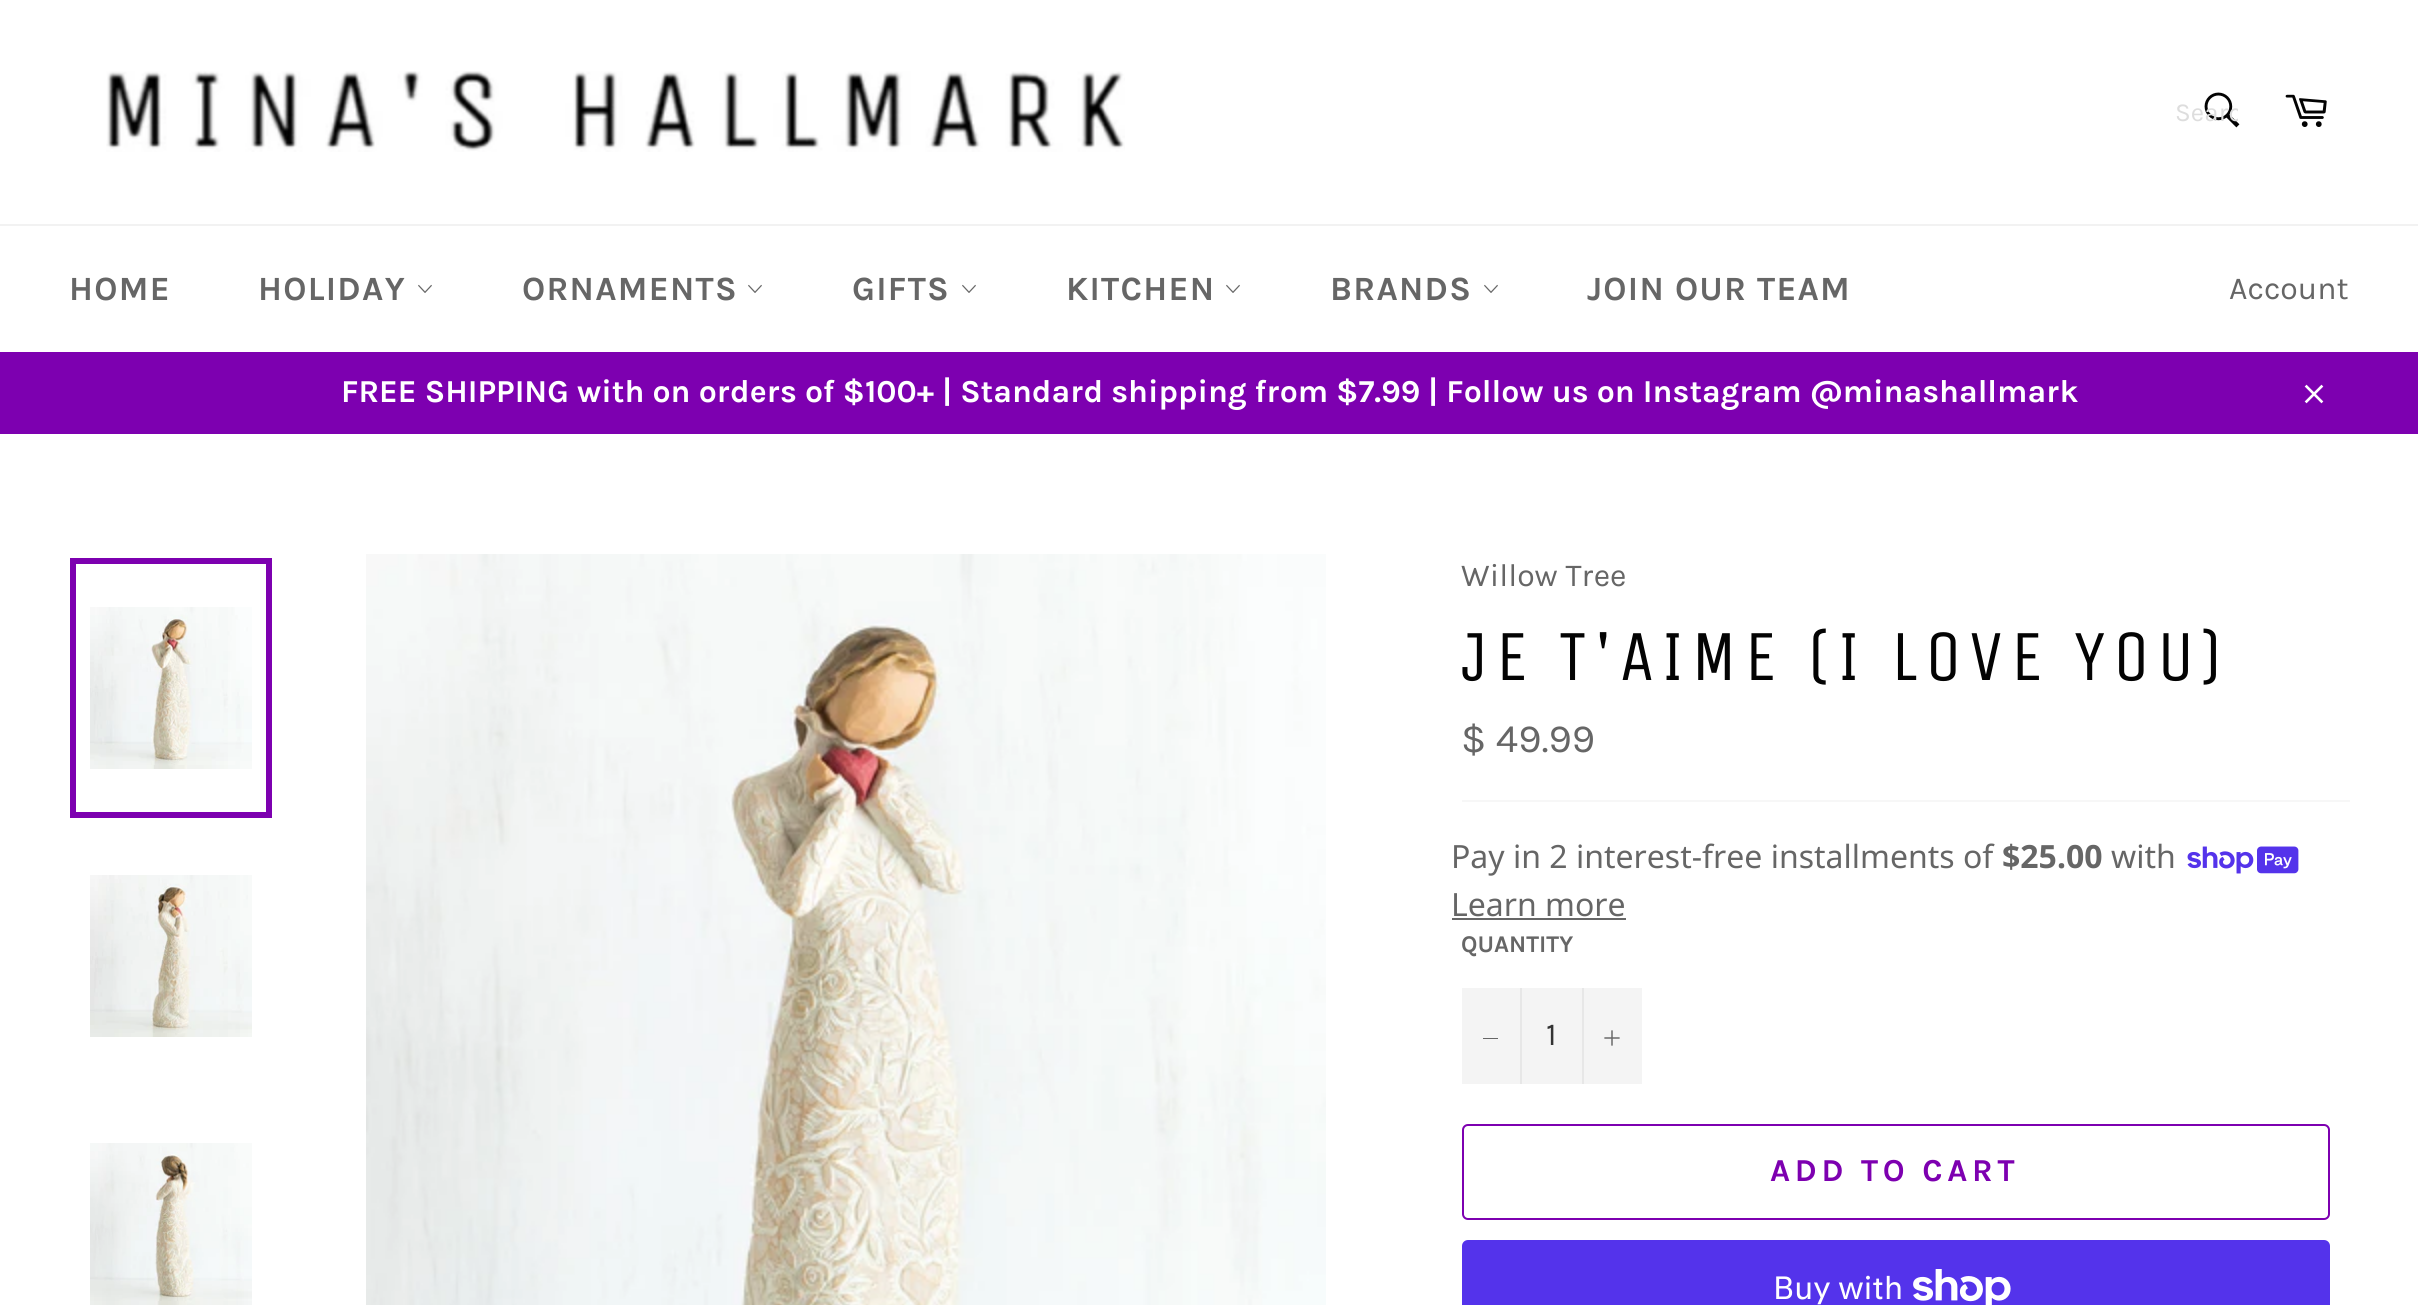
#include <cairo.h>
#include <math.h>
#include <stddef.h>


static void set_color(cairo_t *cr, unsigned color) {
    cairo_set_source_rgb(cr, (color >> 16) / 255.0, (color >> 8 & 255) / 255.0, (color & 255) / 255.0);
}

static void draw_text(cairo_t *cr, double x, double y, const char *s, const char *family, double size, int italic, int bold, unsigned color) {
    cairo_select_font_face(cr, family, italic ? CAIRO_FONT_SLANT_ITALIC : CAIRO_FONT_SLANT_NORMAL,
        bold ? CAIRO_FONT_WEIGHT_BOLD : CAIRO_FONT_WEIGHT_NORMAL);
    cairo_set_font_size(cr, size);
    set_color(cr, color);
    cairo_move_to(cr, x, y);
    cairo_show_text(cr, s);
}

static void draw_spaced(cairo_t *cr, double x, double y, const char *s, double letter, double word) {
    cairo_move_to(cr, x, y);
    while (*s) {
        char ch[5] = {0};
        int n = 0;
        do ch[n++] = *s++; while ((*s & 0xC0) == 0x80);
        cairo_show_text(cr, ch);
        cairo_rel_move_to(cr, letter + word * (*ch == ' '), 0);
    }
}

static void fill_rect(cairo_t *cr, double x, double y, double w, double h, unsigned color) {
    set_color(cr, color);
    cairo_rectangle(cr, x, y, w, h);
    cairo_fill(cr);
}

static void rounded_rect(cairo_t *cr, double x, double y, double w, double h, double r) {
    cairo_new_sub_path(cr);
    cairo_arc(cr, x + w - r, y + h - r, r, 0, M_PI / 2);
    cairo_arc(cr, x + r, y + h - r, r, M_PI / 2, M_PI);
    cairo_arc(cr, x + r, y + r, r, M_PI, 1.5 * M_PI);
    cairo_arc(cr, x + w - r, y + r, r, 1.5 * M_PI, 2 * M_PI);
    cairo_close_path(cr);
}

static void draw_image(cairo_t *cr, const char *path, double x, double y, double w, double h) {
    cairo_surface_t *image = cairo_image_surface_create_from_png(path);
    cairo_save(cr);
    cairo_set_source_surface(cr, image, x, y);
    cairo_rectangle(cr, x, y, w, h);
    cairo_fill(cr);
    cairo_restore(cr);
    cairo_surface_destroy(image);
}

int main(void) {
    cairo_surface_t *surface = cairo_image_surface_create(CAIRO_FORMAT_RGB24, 2418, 1305);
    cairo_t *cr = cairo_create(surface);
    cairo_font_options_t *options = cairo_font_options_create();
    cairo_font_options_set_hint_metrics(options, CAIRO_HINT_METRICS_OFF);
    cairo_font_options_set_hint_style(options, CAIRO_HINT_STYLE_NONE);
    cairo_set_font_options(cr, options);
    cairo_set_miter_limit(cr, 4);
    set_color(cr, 0xFFFFFF);
    cairo_paint(cr);
    draw_image(cr, "assets/img1.png", 106, 71, 1019, 81);
    draw_image(cr, "assets/img2.png", 2204, 92, 36, 36);
    cairo_save(cr);
    cairo_rectangle(cr, 2174, 98, 64, 30);
    cairo_clip(cr);
    draw_text(cr, 2175, 121, "Searc", "Karla", 26, 0, 0, 0xDDDDDD);
    cairo_restore(cr);
    draw_image(cr, "assets/img3.png", 2285, 94, 42, 33);
    fill_rect(cr, 0, 224, 2418, 2, 0xF2F2F2);
    cairo_select_font_face(cr, "Karla", CAIRO_FONT_SLANT_NORMAL, CAIRO_FONT_WEIGHT_BOLD);
    cairo_set_font_size(cr, 34);
    set_color(cr, 0x666666);
    draw_spaced(cr, 69, 300, "HOME", 1.25, 0);
    draw_spaced(cr, 258, 300, "HOLIDAY", 1.25, 0);
    draw_image(cr, "assets/img4.png", 418, 284, 14, 9);
    draw_spaced(cr, 522, 300, "ORNAMENTS", 1.25, 0);
    draw_image(cr, "assets/img4.png", 748, 284, 14, 9);
    draw_spaced(cr, 852, 300, "GIFTS", 1.25, 0);
    draw_image(cr, "assets/img4.png", 962, 284, 14, 9);
    draw_spaced(cr, 1066, 300, "KITCHEN", 1.25, 0);
    draw_image(cr, "assets/img4.png", 1226, 284, 14, 9);
    draw_spaced(cr, 1330, 300, "BRANDS", 1.25, 0);
    draw_image(cr, "assets/img4.png", 1484, 284, 14, 9);
    draw_spaced(cr, 1587, 300, "JOIN OUR TEAM", 1.25, 0);
    draw_text(cr, 2229, 299, "Account", "Karla", 32, 0, 0, 0x666666);
    fill_rect(cr, 0, 352, 2418, 82, 0x7D00B0);
    draw_text(cr, 341, 402, "FREE SHIPPING with on orders of $100+ | Standard shipping from $7.99 | Follow us on Instagram @minashallmark", "Karla", 32, 0, 1, 0xFFFFFF);
    draw_image(cr, "assets/img5.png", 2304, 384, 20, 20);
    draw_image(cr, "assets/img6.png", 90, 607, 162, 162);
    cairo_rectangle(cr, 73, 561, 196, 254);
    set_color(cr, 0x7D00B0);
    cairo_set_line_width(cr, 6);
    cairo_stroke(cr);
    draw_image(cr, "assets/img7.png", 90, 875, 162, 162);
    draw_image(cr, "assets/img8.png", 90, 1143, 162, 162);
    draw_image(cr, "assets/img9.png", 366, 554, 960, 751);
    draw_text(cr, 1461, 586, "Willow Tree", "Karla", 32, 0, 0, 0x666666);
    cairo_select_font_face(cr, "Unica One", CAIRO_FONT_SLANT_NORMAL, CAIRO_FONT_WEIGHT_NORMAL);
    cairo_set_font_size(cr, 72);
    set_color(cr, 0x030303);
    draw_spaced(cr, 1461, 680, "JE T'AIME (I LOVE YOU)", 7.2, 0);
    draw_text(cr, 1461, 752, "$ 49.99", "Karla", 40, 0, 0, 0x666666);
    fill_rect(cr, 1462, 800, 888, 2, 0xF7F7F7);
    draw_text(cr, 1451, 868, "Pay in 2 interest-free installments of", "Noto Sans", 32, 0, 0, 0x666666);
    draw_text(cr, 2002, 868, "$25.00", "Noto Sans", 32, 0, 1, 0x666666);
    draw_text(cr, 2111, 868, "with", "Noto Sans", 32, 0, 0, 0x666666);
    draw_image(cr, "assets/img10.png", 2187, 846, 112, 28);
    draw_text(cr, 1451, 916, "Learn more", "Noto Sans", 32, 0, 0, 0x666666);
    fill_rect(cr, 1452, 918, 174, 2, 0x666666);
    draw_text(cr, 1461, 952, "QUANTITY", "Karla", 24, 0, 1, 0x666666);
    fill_rect(cr, 1462, 988, 180, 96, 0xF4F4F4);
    fill_rect(cr, 1520, 988, 2, 96, 0xE7E7E7);
    fill_rect(cr, 1483, 1038, 15, 1, 0x666666);
    draw_text(cr, 1546, 1045, "1", "Karla", 32, 0, 0, 0x333333);
    fill_rect(cr, 1582, 988, 2, 96, 0xE7E7E7);
    draw_image(cr, "assets/img11.png", 1604, 1030, 16, 16);
    rounded_rect(cr, 1463, 1125, 866, 94, 5);
    set_color(cr, 0x7D00B0);
    cairo_set_line_width(cr, 2);
    cairo_stroke(cr);
    cairo_select_font_face(cr, "Karla", CAIRO_FONT_SLANT_NORMAL, CAIRO_FONT_WEIGHT_BOLD);
    draw_spaced(cr, 1770, 1181, "ADD TO CART", 4.75, 0);
    set_color(cr, 0x5433EB);
    rounded_rect(cr, 1462, 1240, 868, 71, 6);
    cairo_fill(cr);
    draw_text(cr, 1773, 1299, "Buy with", "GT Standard", 32, 0, 0, 0xFFFFFF);
    draw_image(cr, "assets/img12.png", 1913, 1269, 98, 36);
    cairo_surface_write_to_png(surface, "output.png");
    cairo_font_options_destroy(options);
    cairo_destroy(cr);
    cairo_surface_destroy(surface);
    return 0;
}
